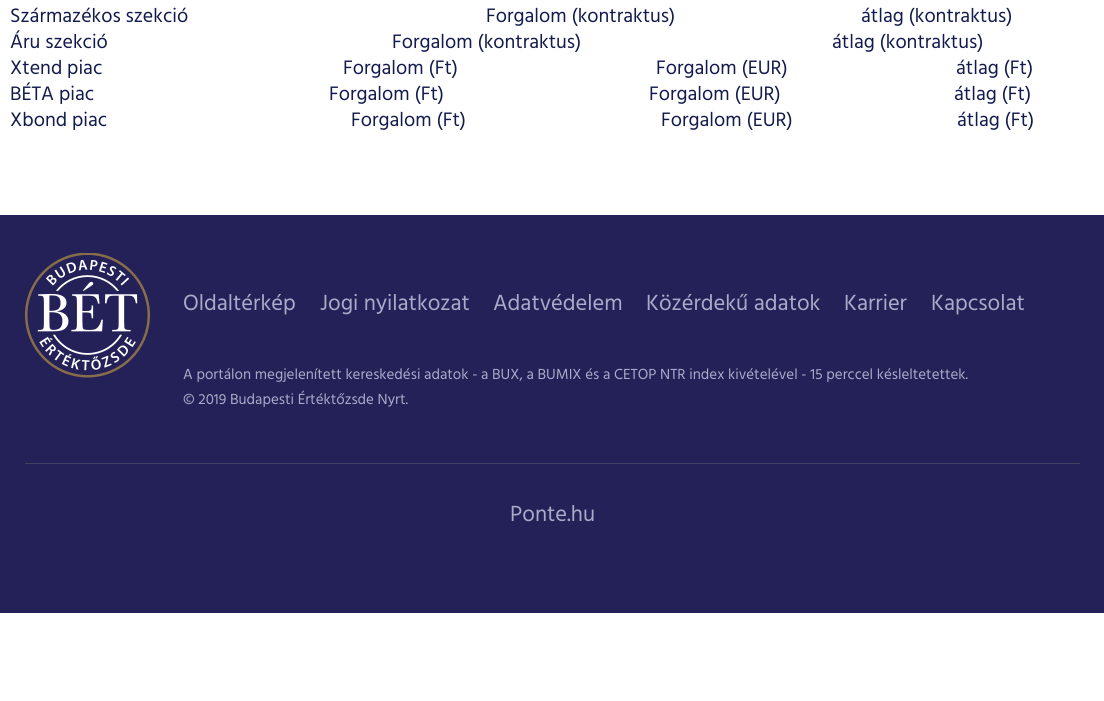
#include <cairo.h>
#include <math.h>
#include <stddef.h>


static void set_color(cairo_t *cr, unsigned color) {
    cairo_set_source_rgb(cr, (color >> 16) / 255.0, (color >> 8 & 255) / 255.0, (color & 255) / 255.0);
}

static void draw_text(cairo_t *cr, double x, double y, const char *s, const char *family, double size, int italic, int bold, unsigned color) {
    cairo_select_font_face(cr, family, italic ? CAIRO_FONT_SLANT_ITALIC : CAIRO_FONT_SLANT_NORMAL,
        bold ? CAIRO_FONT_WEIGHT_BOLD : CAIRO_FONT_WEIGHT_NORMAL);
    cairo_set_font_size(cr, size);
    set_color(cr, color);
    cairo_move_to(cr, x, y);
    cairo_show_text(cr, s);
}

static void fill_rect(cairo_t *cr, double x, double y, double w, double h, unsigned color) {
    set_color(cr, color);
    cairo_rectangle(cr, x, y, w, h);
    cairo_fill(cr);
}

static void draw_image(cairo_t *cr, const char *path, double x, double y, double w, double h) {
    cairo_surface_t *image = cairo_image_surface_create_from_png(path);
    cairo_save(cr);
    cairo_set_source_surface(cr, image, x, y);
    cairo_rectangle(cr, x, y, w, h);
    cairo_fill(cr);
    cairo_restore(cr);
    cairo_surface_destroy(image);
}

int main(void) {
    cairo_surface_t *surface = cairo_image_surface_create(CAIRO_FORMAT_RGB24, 1104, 701);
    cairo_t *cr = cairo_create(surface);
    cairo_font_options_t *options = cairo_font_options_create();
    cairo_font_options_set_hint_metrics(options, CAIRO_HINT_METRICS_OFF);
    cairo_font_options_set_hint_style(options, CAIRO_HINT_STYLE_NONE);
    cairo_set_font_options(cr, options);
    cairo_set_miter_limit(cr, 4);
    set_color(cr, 0xFFFFFF);
    cairo_paint(cr);
    draw_text(cr, 10, 22, "Származékos szekció", "Hind", 20, 0, 0, 0x131B4D);
    draw_text(cr, 486, 22, "Forgalom (kontraktus)", "Hind", 20, 0, 0, 0x131B4D);
    draw_text(cr, 861, 22, "átlag (kontraktus)", "Hind", 20, 0, 0, 0x131B4D);
    draw_text(cr, 10, 48, "Áru szekció", "Hind", 20, 0, 0, 0x131B4D);
    draw_text(cr, 392, 48, "Forgalom (kontraktus)", "Hind", 20, 0, 0, 0x131B4D);
    draw_text(cr, 832, 48, "átlag (kontraktus)", "Hind", 20, 0, 0, 0x131B4D);
    draw_text(cr, 10, 74, "Xtend piac", "Hind", 20, 0, 0, 0x131B4D);
    draw_text(cr, 343, 74, "Forgalom (Ft)", "Hind", 20, 0, 0, 0x131B4D);
    draw_text(cr, 656, 74, "Forgalom (EUR)", "Hind", 20, 0, 0, 0x131B4D);
    draw_text(cr, 956, 74, "átlag (Ft)", "Hind", 20, 0, 0, 0x131B4D);
    draw_text(cr, 10, 100, "BÉTA piac", "Hind", 20, 0, 0, 0x131B4D);
    draw_text(cr, 329, 100, "Forgalom (Ft)", "Hind", 20, 0, 0, 0x131B4D);
    draw_text(cr, 649, 100, "Forgalom (EUR)", "Hind", 20, 0, 0, 0x131B4D);
    draw_text(cr, 954, 100, "átlag (Ft)", "Hind", 20, 0, 0, 0x131B4D);
    draw_text(cr, 10, 126, "Xbond piac", "Hind", 20, 0, 0, 0x131B4D);
    draw_text(cr, 351, 126, "Forgalom (Ft)", "Hind", 20, 0, 0, 0x131B4D);
    draw_text(cr, 661, 126, "Forgalom (EUR)", "Hind", 20, 0, 0, 0x131B4D);
    draw_text(cr, 957, 126, "átlag (Ft)", "Hind", 20, 0, 0, 0x131B4D);
    fill_rect(cr, 0, 215, 1104, 398, 0x232157);
    draw_image(cr, "assets/img1.png", 25, 253, 125, 125);
    draw_text(cr, 183, 310, "Oldaltérkép", "Hind", 22.5, 0, 0, 0xABAACA);
    draw_text(cr, 320, 310, "Jogi nyilatkozat", "Hind", 22.5, 0, 0, 0xABAACA);
    draw_text(cr, 493, 310, "Adatvédelem", "Hind", 22.5, 0, 0, 0xABAACA);
    draw_text(cr, 646, 310, "Közérdekű adatok", "Hind", 22.5, 0, 0, 0xABAACA);
    draw_text(cr, 844, 310, "Karrier", "Hind", 22.5, 0, 0, 0xABAACA);
    draw_text(cr, 931, 310, "Kapcsolat", "Hind", 22.5, 0, 0, 0xABAACA);
    draw_text(cr, 183, 379, "A portálon megjelenített kereskedési adatok - a BUX, a BUMIX és a CETOP NTR index kivételével - 15 perccel késleltetettek.", "Hind", 15, 0, 0, 0xABAACA);
    draw_text(cr, 183, 404, "© 2019 Budapesti Értéktőzsde Nyrt.", "Hind", 15, 0, 0, 0xABAACA);
    fill_rect(cr, 25, 463, 1055, 1, 0x403F65);
    draw_text(cr, 510, 521, "Ponte.hu", "Hind", 22.5, 0, 0, 0xABAACA);
    cairo_surface_write_to_png(surface, "output.png");
    cairo_font_options_destroy(options);
    cairo_destroy(cr);
    cairo_surface_destroy(surface);
    return 0;
}
